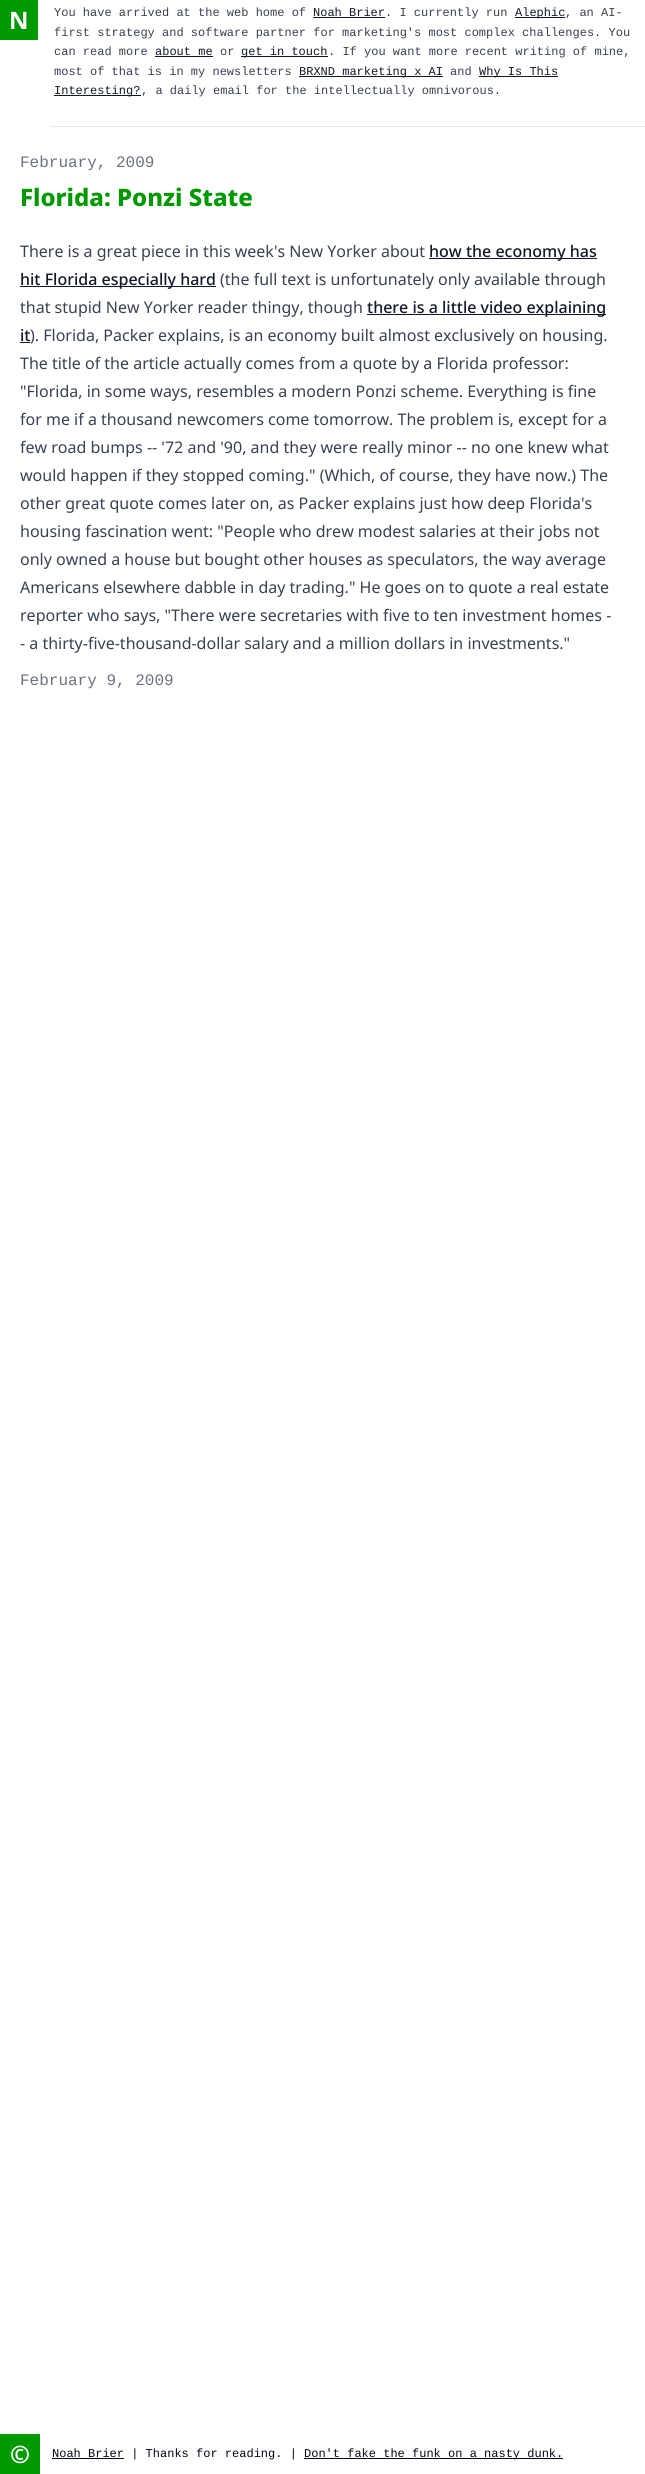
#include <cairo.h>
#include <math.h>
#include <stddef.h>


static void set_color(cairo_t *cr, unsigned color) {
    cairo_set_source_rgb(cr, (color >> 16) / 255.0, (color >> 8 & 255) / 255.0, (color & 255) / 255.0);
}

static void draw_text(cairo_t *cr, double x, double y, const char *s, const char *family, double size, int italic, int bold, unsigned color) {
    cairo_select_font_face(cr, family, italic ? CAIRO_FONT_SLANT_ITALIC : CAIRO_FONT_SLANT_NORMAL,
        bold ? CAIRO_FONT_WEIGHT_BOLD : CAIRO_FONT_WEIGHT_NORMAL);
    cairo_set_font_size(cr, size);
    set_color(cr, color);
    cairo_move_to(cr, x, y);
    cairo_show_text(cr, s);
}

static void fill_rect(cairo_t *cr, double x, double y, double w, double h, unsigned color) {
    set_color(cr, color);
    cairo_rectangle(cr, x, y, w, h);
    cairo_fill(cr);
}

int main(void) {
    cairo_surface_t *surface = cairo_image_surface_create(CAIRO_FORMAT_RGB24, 645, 2474);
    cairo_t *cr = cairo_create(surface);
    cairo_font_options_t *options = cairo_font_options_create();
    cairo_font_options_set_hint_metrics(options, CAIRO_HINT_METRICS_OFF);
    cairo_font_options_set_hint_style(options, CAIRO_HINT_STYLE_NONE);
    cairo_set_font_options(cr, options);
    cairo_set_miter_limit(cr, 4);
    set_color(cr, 0xFFFFFF);
    cairo_paint(cr);
    fill_rect(cr, 0, 0, 38, 40, 0x009900);
    draw_text(cr, 9, 29, "N", "Noto Sans", 24, 0, 1, 0xFFFFFF);
    fill_rect(cr, 50, 126, 595, 1, 0xE5E7EB);
    draw_text(cr, 54, 16, "You have arrived at the web home of", "Liberation Mono", 12, 0, 0, 0x374151);
    draw_text(cr, 313, 16, "Noah Brier", "Liberation Mono", 12, 0, 0, 0x111827);
    fill_rect(cr, 313, 17, 72, 1, 0x111827);
    draw_text(cr, 385, 16, ". I currently run", "Liberation Mono", 12, 0, 0, 0x374151);
    fill_rect(cr, 515, 17, 50, 1, 0x111827);
    draw_text(cr, 515, 16, "Alephic", "Liberation Mono", 12, 0, 0, 0x111827);
    draw_text(cr, 565, 16, ", an AI-", "Liberation Mono", 12, 0, 0, 0x374151);
    draw_text(cr, 54, 36, "first strategy and software partner for marketing's most complex challenges. You", "Liberation Mono", 12, 0, 0, 0x374151);
    draw_text(cr, 54, 55, "can read more", "Liberation Mono", 12, 0, 0, 0x374151);
    draw_text(cr, 155, 55, "about me", "Liberation Mono", 12, 0, 0, 0x111827);
    fill_rect(cr, 155, 56, 58, 1, 0x111827);
    draw_text(cr, 220, 55, "or", "Liberation Mono", 12, 0, 0, 0x374151);
    fill_rect(cr, 241, 56, 87, 1, 0x111827);
    draw_text(cr, 241, 55, "get in touch", "Liberation Mono", 12, 0, 0, 0x111827);
    draw_text(cr, 328, 55, ". If you want more recent writing of mine,", "Liberation Mono", 12, 0, 0, 0x374151);
    draw_text(cr, 54, 75, "most of that is in my newsletters", "Liberation Mono", 12, 0, 0, 0x374151);
    fill_rect(cr, 299, 76, 144, 1, 0x111827);
    draw_text(cr, 299, 75, "BRXND marketing x AI", "Liberation Mono", 12, 0, 0, 0x111827);
    draw_text(cr, 450, 75, "and", "Liberation Mono", 12, 0, 0, 0x374151);
    fill_rect(cr, 479, 76, 79, 1, 0x111827);
    draw_text(cr, 479, 75, "Why Is This", "Liberation Mono", 12, 0, 0, 0x111827);
    fill_rect(cr, 54, 95, 87, 1, 0x111827);
    draw_text(cr, 54, 94, "Interesting?", "Liberation Mono", 12, 0, 0, 0x111827);
    draw_text(cr, 141, 94, ", a daily email for the intellectually omnivorous.", "Liberation Mono", 12, 0, 0, 0x374151);
    draw_text(cr, 20, 167, "February, 2009", "Liberation Mono", 16, 0, 0, 0x6B7280);
    draw_text(cr, 20, 206, "Florida: Ponzi State", "Noto Sans ExtraBold", 24, 0, 0, 0x009900);
    draw_text(cr, 20, 257, "There is a great piece in this week's New Yorker about", "Noto Sans", 16, 0, 0, 0x374151);
    fill_rect(cr, 429, 258, 168, 1, 0x111827);
    draw_text(cr, 429, 257, "how the economy has", "Noto Sans Medium", 16, 0, 0, 0x111827);
    fill_rect(cr, 20, 286, 196, 1, 0x111827);
    draw_text(cr, 20, 285, "hit Florida especially hard", "Noto Sans Medium", 16, 0, 0, 0x111827);
    draw_text(cr, 220, 285, "(the full text is unfortunately only available through", "Noto Sans", 16, 0, 0, 0x374151);
    draw_text(cr, 20, 313, "that stupid New Yorker reader thingy, though", "Noto Sans", 16, 0, 0, 0x374151);
    fill_rect(cr, 367, 314, 239, 1, 0x111827);
    draw_text(cr, 367, 313, "there is a little video explaining", "Noto Sans Medium", 16, 0, 0, 0x111827);
    draw_text(cr, 20, 341, "it", "Noto Sans Medium", 16, 0, 0, 0x111827);
    fill_rect(cr, 20, 342, 10, 1, 0x111827);
    draw_text(cr, 30, 341, "). Florida, Packer explains, is an economy built almost exclusively on housing.", "Noto Sans", 16, 0, 0, 0x374151);
    draw_text(cr, 20, 369, "The title of the article actually comes from a quote by a Florida professor:", "Noto Sans", 16, 0, 0, 0x374151);
    draw_text(cr, 20, 397, "\"Florida, in some ways, resembles a modern Ponzi scheme. Everything is fine", "Noto Sans", 16, 0, 0, 0x374151);
    draw_text(cr, 20, 425, "for me if a thousand newcomers come tomorrow. The problem is, except for a", "Noto Sans", 16, 0, 0, 0x374151);
    draw_text(cr, 20, 453, "few road bumps -- '72 and '90, and they were really minor -- no one knew what", "Noto Sans", 16, 0, 0, 0x374151);
    draw_text(cr, 20, 481, "would happen if they stopped coming.\" (Which, of course, they have now.) The", "Noto Sans", 16, 0, 0, 0x374151);
    draw_text(cr, 20, 509, "other great quote comes later on, as Packer explains just how deep Florida's", "Noto Sans", 16, 0, 0, 0x374151);
    draw_text(cr, 20, 537, "housing fascination went: \"People who drew modest salaries at their jobs not", "Noto Sans", 16, 0, 0, 0x374151);
    draw_text(cr, 20, 565, "only owned a house but bought other houses as speculators, the way average", "Noto Sans", 16, 0, 0, 0x374151);
    draw_text(cr, 20, 593, "Americans elsewhere dabble in day trading.\" He goes on to quote a real estate", "Noto Sans", 16, 0, 0, 0x374151);
    draw_text(cr, 20, 621, "reporter who says, \"There were secretaries with five to ten investment homes -", "Noto Sans", 16, 0, 0, 0x374151);
    draw_text(cr, 20, 649, "- a thirty-five-thousand-dollar salary and a million dollars in investments.\"", "Noto Sans", 16, 0, 0, 0x374151);
    draw_text(cr, 20, 685, "February 9, 2009", "Liberation Mono", 16, 0, 0, 0x6B7280);
    fill_rect(cr, 0, 2434, 40, 40, 0x009900);
    draw_text(cr, 10, 2463, "©", "Noto Sans", 24, 0, 1, 0xFFFFFF);
    fill_rect(cr, 52, 2458, 72, 1, 0x020817);
    draw_text(cr, 52, 2457, "Noah Brier | Thanks for reading. |", "Liberation Mono", 12, 0, 0, 0x020817);
    fill_rect(cr, 304, 2458, 259, 1, 0x020817);
    draw_text(cr, 304, 2457, "Don't fake the funk on a nasty dunk.", "Liberation Mono", 12, 0, 0, 0x020817);
    cairo_surface_write_to_png(surface, "output.png");
    cairo_font_options_destroy(options);
    cairo_destroy(cr);
    cairo_surface_destroy(surface);
    return 0;
}
